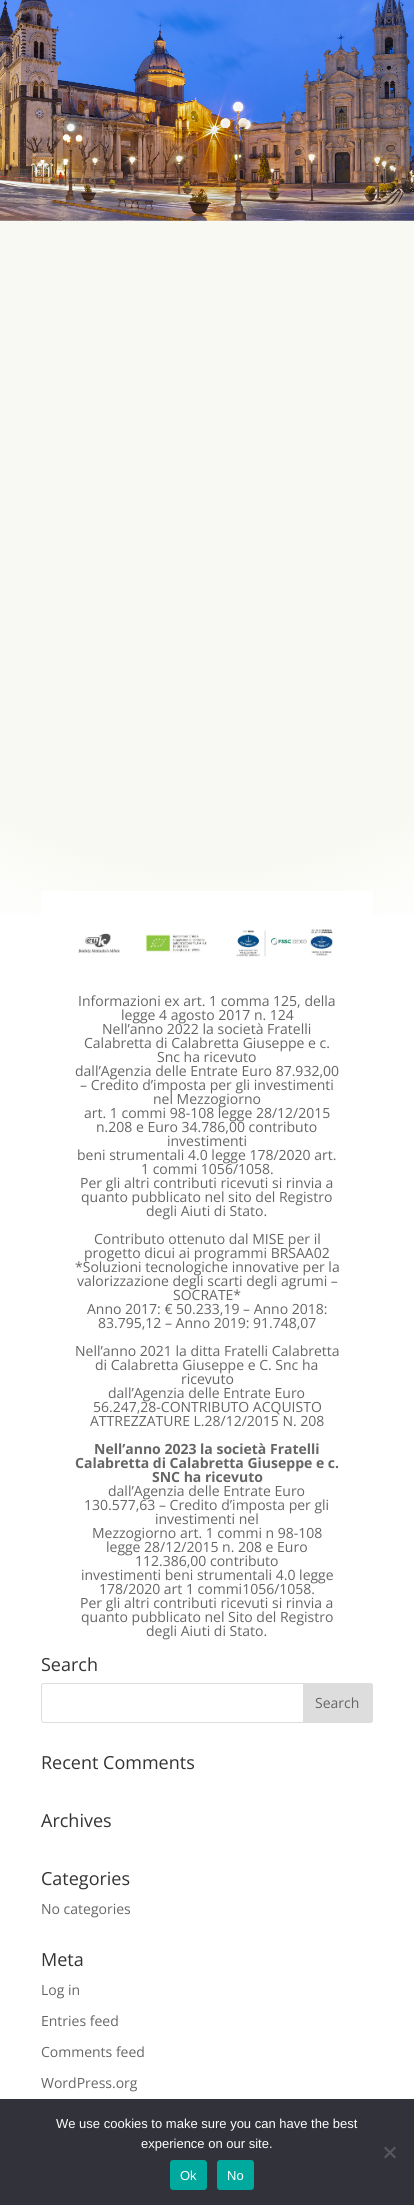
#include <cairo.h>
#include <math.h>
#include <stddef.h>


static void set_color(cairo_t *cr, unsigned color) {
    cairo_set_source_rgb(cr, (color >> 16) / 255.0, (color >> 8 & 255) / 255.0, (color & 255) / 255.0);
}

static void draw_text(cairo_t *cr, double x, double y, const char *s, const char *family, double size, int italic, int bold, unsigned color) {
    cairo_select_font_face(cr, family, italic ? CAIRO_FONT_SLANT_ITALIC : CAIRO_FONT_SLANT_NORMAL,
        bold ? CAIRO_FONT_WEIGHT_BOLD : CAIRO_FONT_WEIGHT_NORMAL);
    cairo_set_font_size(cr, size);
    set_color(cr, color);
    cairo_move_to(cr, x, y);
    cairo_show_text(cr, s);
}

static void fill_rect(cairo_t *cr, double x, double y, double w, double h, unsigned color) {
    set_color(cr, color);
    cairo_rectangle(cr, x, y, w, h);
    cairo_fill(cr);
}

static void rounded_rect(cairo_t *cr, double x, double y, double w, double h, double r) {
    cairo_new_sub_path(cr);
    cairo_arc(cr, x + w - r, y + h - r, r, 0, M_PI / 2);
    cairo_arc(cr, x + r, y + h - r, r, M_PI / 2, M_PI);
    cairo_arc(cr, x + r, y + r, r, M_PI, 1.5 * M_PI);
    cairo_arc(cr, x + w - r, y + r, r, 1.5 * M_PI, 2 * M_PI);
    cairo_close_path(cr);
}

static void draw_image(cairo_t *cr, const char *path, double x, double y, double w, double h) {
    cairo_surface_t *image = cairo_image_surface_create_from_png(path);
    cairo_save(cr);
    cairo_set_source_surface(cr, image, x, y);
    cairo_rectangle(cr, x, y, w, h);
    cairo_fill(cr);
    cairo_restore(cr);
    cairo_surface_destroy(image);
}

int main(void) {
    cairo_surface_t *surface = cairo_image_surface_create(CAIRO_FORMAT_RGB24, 414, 2205);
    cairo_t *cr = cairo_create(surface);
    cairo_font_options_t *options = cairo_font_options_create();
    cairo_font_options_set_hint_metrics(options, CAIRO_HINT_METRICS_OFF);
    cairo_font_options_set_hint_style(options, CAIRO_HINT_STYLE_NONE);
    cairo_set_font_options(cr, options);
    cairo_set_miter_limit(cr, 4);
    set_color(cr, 0xFFFFFF);
    cairo_paint(cr);
    draw_image(cr, "assets/img1.png", 0, 0, 414, 915);
    fill_rect(cr, 41, 891, 332, 24, 0xFFFFFF);
    draw_image(cr, "assets/img2.png", 78, 929, 255, 28);
    draw_text(cr, 78, 1006, "Informazioni ex art. 1 comma 125, della", "Open Sans", 14, 0, 0, 0x666666);
    draw_text(cr, 121, 1020, "legge 4 agosto 2017 n. 124", "Open Sans", 14, 0, 0, 0x666666);
    draw_text(cr, 102, 1034, "Nell’anno 2022 la società Fratelli", "Open Sans", 14, 0, 0, 0x666666);
    draw_text(cr, 84, 1048, "Calabretta di Calabretta Giuseppe e c.", "Open Sans", 14, 0, 0, 0x666666);
    draw_text(cr, 157, 1062, "Snc ha ricevuto", "Open Sans", 14, 0, 0, 0x666666);
    draw_text(cr, 75, 1076, "dall’Agenzia delle Entrate Euro 87.932,00", "Open Sans", 14, 0, 0, 0x666666);
    draw_text(cr, 80, 1090, "– Credito d’imposta per gli investimenti", "Open Sans", 14, 0, 0, 0x666666);
    draw_text(cr, 153, 1104, "nel Mezzogiorno", "Open Sans", 14, 0, 0, 0x666666);
    draw_text(cr, 84, 1118, "art. 1 commi 98-108 legge 28/12/2015", "Open Sans", 14, 0, 0, 0x666666);
    draw_text(cr, 96, 1132, "n.208 e Euro 34.786,00 contributo", "Open Sans", 14, 0, 0, 0x666666);
    draw_text(cr, 167, 1146, "investimenti", "Open Sans", 14, 0, 0, 0x666666);
    draw_text(cr, 77, 1160, "beni strumentali 4.0 legge 178/2020 art.", "Open Sans", 14, 0, 0, 0x666666);
    draw_text(cr, 141, 1174, "1 commi 1056/1058.", "Open Sans", 14, 0, 0, 0x666666);
    draw_text(cr, 80, 1188, "Per gli altri contributi ricevuti si rinvia a", "Open Sans", 14, 0, 0, 0x666666);
    draw_text(cr, 81, 1202, "quanto pubblicato nel sito del Registro", "Open Sans", 14, 0, 0, 0x666666);
    draw_text(cr, 146, 1216, "degli Aiuti di Stato.", "Open Sans", 14, 0, 0, 0x666666);
    draw_text(cr, 94, 1244, "Contributo ottenuto dal MISE per il", "Open Sans", 14, 0, 0, 0x666666);
    draw_text(cr, 84, 1258, "progetto dicui ai programmi BRSAA02", "Open Sans", 14, 0, 0, 0x666666);
    draw_text(cr, 75, 1272, "*Soluzioni tecnologiche innovative per la", "Open Sans", 14, 0, 0, 0x666666);
    draw_text(cr, 77, 1286, "valorizzazione degli scarti degli agrumi –", "Open Sans", 14, 0, 0, 0x666666);
    draw_text(cr, 173, 1300, "SOCRATE*", "Open Sans", 14, 0, 0, 0x666666);
    draw_text(cr, 87, 1314, "Anno 2017: € 50.233,19 – Anno 2018:", "Open Sans", 14, 0, 0, 0x666666);
    draw_text(cr, 98, 1328, "83.795,12 – Anno 2019: 91.748,07", "Open Sans", 14, 0, 0, 0x666666);
    draw_text(cr, 75, 1356, "Nell’anno 2021 la ditta Fratelli Calabretta", "Open Sans", 14, 0, 0, 0x666666);
    draw_text(cr, 95, 1370, "di Calabretta Giuseppe e C. Snc ha", "Open Sans", 14, 0, 0, 0x666666);
    draw_text(cr, 181, 1384, "ricevuto", "Open Sans", 14, 0, 0, 0x666666);
    draw_text(cr, 108, 1398, "dall’Agenzia delle Entrate Euro", "Open Sans", 14, 0, 0, 0x666666);
    draw_text(cr, 93, 1412, "56.247,28-CONTRIBUTO ACQUISTO", "Open Sans", 14, 0, 0, 0x666666);
    draw_text(cr, 90, 1426, "ATTREZZATURE L.28/12/2015 N. 208", "Open Sans", 14, 0, 0, 0x666666);
    draw_text(cr, 94, 1454, "Nell’anno 2023 la società Fratelli", "Open Sans", 14, 0, 1, 0x666666);
    draw_text(cr, 75, 1468, "Calabretta di Calabretta Giuseppe e c.", "Open Sans", 14, 0, 1, 0x666666);
    draw_text(cr, 152, 1482, "SNC ha ricevuto", "Open Sans", 14, 0, 1, 0x666666);
    draw_text(cr, 108, 1496, "dall’Agenzia delle Entrate Euro", "Open Sans", 14, 0, 0, 0x666666);
    draw_text(cr, 84, 1510, "130.577,63 – Credito d’imposta per gli", "Open Sans", 14, 0, 0, 0x666666);
    draw_text(cr, 155, 1524, "investimenti nel", "Open Sans", 14, 0, 0, 0x666666);
    draw_text(cr, 92, 1538, "Mezzogiorno art. 1 commi n 98-108", "Open Sans", 14, 0, 0, 0x666666);
    draw_text(cr, 106, 1552, "legge 28/12/2015 n. 208 e Euro", "Open Sans", 14, 0, 0, 0x666666);
    draw_text(cr, 135, 1566, "112.386,00 contributo", "Open Sans", 14, 0, 0, 0x666666);
    draw_text(cr, 81, 1580, "investimenti beni strumentali 4.0 legge", "Open Sans", 14, 0, 0, 0x666666);
    draw_text(cr, 99, 1594, "178/2020 art 1 commi1056/1058.", "Open Sans", 14, 0, 0, 0x666666);
    draw_text(cr, 80, 1608, "Per gli altri contributi ricevuti si rinvia a", "Open Sans", 14, 0, 0, 0x666666);
    draw_text(cr, 81, 1622, "quanto pubblicato nel Sito del Registro", "Open Sans", 14, 0, 0, 0x666666);
    draw_text(cr, 146, 1636, "degli Aiuti di Stato.", "Open Sans", 14, 0, 0, 0x666666);
    draw_text(cr, 41, 1671, "Search", "Open Sans", 18, 0, 0, 0x333333);
    rounded_rect(cr, 41.5, 1683.5, 331, 39, 2.5);
    set_color(cr, 0xDDDDDD);
    cairo_set_line_width(cr, 1);
    cairo_stroke(cr);
    cairo_new_path(cr);
    cairo_move_to(cr, 303.5, 1683.5);
    cairo_line_to(cr, 370, 1683.5);
    cairo_curve_to(cr, 371.5, 1683.5, 372.5, 1684.5, 372.5, 1686);
    cairo_line_to(cr, 372.5, 1720);
    cairo_curve_to(cr, 372.5, 1721.5, 371.5, 1722.5, 370, 1722.5);
    cairo_line_to(cr, 303.5, 1722.5);
    cairo_close_path(cr);
    cairo_fill_preserve(cr);
    cairo_stroke(cr);
    draw_text(cr, 315, 1708, "Search", "Open Sans", 14, 0, 0, 0x666666);
    draw_text(cr, 41, 1769, "Recent Comments", "Open Sans", 18, 0, 0, 0x333333);
    draw_text(cr, 41, 1827, "Archives", "Open Sans", 18, 0, 0, 0x333333);
    draw_text(cr, 41, 1885, "Categories", "Open Sans", 18, 0, 0, 0x333333);
    draw_text(cr, 41, 1914, "No categories", "Open Sans", 14, 0, 0, 0x666666);
    draw_text(cr, 41, 1966, "Meta", "Open Sans", 18, 0, 0, 0x333333);
    draw_text(cr, 41, 1995, "Log in", "Open Sans", 14, 0, 0, 0x666666);
    draw_text(cr, 41, 2026, "Entries feed", "Open Sans", 14, 0, 0, 0x666666);
    draw_text(cr, 41, 2057, "Comments feed", "Open Sans", 14, 0, 0, 0x666666);
    draw_text(cr, 41, 2088, "WordPress.org", "Open Sans", 14, 0, 0, 0x666666);
    fill_rect(cr, 0, 2099, 414, 106, 0x32323A);
    draw_text(cr, 56, 2128, "We use cookies to make sure you can have the best", "Liberation Sans", 13, 0, 0, 0xFFFFFF);
    draw_text(cr, 141, 2148, "experience on our site.", "Liberation Sans", 13, 0, 0, 0xFFFFFF);
    set_color(cr, 0x59595D);
    cairo_new_path(cr);
    cairo_move_to(cr, 394.5, 2146.5);
    cairo_line_to(cr, 396, 2148);
    cairo_line_to(cr, 385.5, 2158.5);
    cairo_line_to(cr, 384, 2157);
    cairo_close_path(cr);
    cairo_fill(cr);
    cairo_new_path(cr);
    cairo_move_to(cr, 384, 2148);
    cairo_line_to(cr, 385.5, 2146.5);
    cairo_line_to(cr, 396, 2157);
    cairo_line_to(cr, 394.5, 2158.5);
    cairo_close_path(cr);
    cairo_fill(cr);
    set_color(cr, 0x00A99D);
    rounded_rect(cr, 170, 2160, 37, 30, 3);
    cairo_fill(cr);
    draw_text(cr, 180, 2180, "Ok", "Liberation Sans", 13, 0, 0, 0xFFFFFF);
    set_color(cr, 0x00A99D);
    rounded_rect(cr, 217, 2160, 37, 30, 3);
    cairo_fill(cr);
    draw_text(cr, 227, 2180, "No", "Liberation Sans", 13, 0, 0, 0xFFFFFF);
    cairo_surface_write_to_png(surface, "output.png");
    cairo_font_options_destroy(options);
    cairo_destroy(cr);
    cairo_surface_destroy(surface);
    return 0;
}
